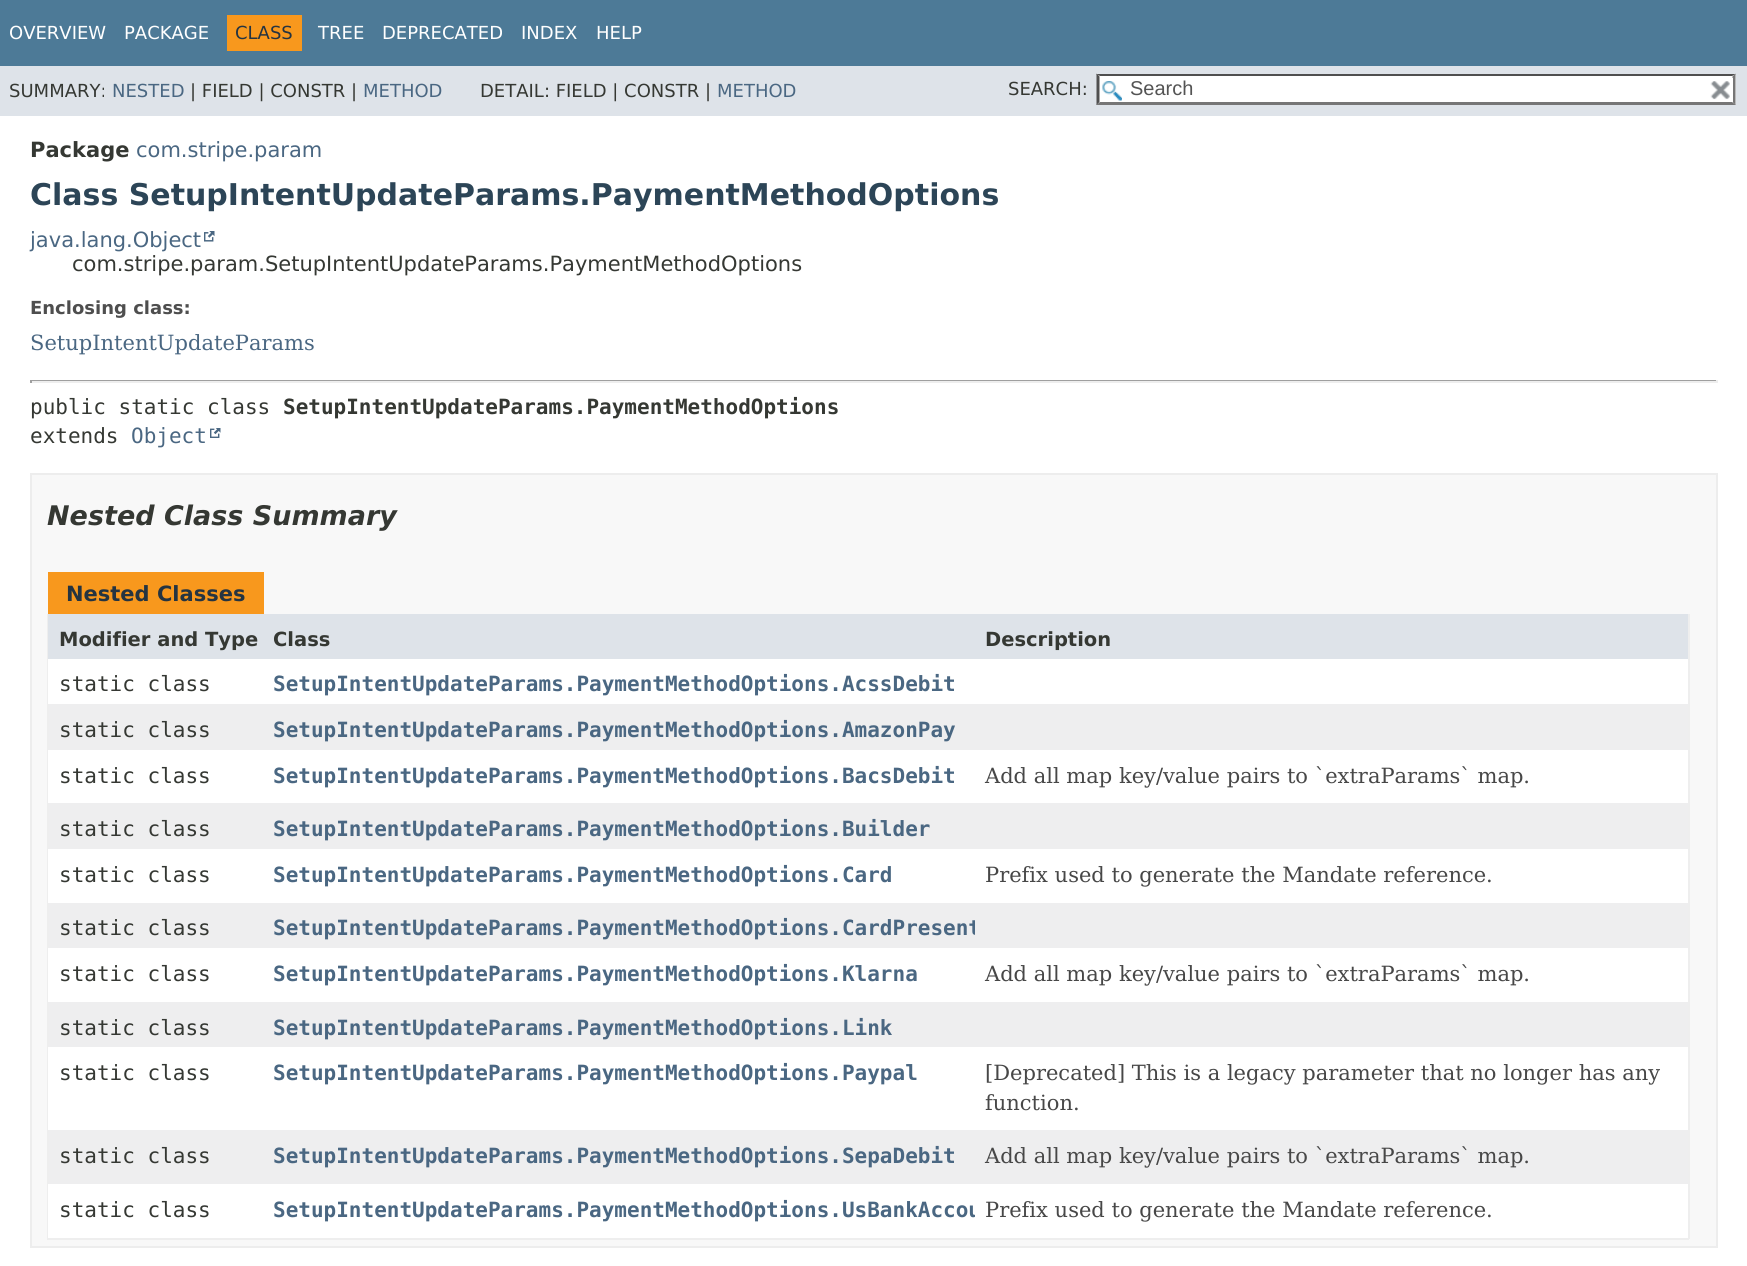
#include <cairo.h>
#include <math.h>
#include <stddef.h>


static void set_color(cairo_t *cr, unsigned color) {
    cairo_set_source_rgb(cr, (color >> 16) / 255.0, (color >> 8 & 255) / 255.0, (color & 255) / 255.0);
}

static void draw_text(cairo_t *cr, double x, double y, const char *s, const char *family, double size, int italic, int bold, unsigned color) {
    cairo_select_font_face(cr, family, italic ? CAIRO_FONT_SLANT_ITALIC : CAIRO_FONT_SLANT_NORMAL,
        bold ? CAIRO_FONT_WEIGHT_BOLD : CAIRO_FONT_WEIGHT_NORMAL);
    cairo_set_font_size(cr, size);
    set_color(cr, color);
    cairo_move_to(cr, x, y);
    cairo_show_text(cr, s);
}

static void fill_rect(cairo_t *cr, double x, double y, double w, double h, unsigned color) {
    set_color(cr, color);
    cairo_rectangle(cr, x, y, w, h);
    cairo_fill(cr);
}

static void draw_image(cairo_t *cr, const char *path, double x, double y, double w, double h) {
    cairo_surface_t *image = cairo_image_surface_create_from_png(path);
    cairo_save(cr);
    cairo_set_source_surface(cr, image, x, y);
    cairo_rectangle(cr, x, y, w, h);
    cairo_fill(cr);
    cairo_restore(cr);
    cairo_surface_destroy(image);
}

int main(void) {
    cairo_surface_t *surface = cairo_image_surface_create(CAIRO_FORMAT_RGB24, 1747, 1266);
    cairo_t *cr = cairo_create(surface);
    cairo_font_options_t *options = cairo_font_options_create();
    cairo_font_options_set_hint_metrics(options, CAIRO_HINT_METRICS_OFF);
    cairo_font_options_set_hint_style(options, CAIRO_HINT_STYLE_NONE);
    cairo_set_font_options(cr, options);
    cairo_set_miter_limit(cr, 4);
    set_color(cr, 0xFFFFFF);
    cairo_paint(cr);
    fill_rect(cr, 0, 0, 1747, 66, 0x4D7A97);
    draw_text(cr, 9, 39, "OVERVIEW", "DejaVu Sans", 18, 0, 0, 0xFFFFFF);
    draw_text(cr, 124, 39, "PACKAGE", "DejaVu Sans", 18, 0, 0, 0xFFFFFF);
    fill_rect(cr, 227, 15, 75, 36, 0xF8981D);
    draw_text(cr, 235, 39, "CLASS", "DejaVu Sans", 18, 0, 0, 0x253441);
    draw_text(cr, 318, 39, "TREE", "DejaVu Sans", 18, 0, 0, 0xFFFFFF);
    draw_text(cr, 382, 39, "DEPRECATED", "DejaVu Sans", 18, 0, 0, 0xFFFFFF);
    draw_text(cr, 521, 39, "INDEX", "DejaVu Sans", 18, 0, 0, 0xFFFFFF);
    draw_text(cr, 596, 39, "HELP", "DejaVu Sans", 18, 0, 0, 0xFFFFFF);
    fill_rect(cr, 0, 66, 1747, 50, 0xDEE3E9);
    draw_text(cr, 9, 97, "SUMMARY:", "DejaVu Sans", 18, 0, 0, 0x353833);
    draw_text(cr, 112, 97, "NESTED", "DejaVu Sans", 18, 0, 0, 0x4A6782);
    draw_text(cr, 190, 97, "| FIELD | CONSTR |", "DejaVu Sans", 18, 0, 0, 0x353833);
    draw_text(cr, 363, 97, "METHOD", "DejaVu Sans", 18, 0, 0, 0x4A6782);
    draw_text(cr, 480, 97, "DETAIL: FIELD | CONSTR |", "DejaVu Sans", 18, 0, 0, 0x353833);
    draw_text(cr, 717, 97, "METHOD", "DejaVu Sans", 18, 0, 0, 0x4A6782);
    draw_text(cr, 1008, 95, "SEARCH:", "DejaVu Sans", 18, 0, 0, 0x353833);
    fill_rect(cr, 1097, 74, 639, 31, 0xFFFFFF);
    draw_image(cr, "assets/img1.png", 1102, 81, 20, 20);
    set_color(cr, 0x4F4F4F);
    cairo_new_path(cr);
    cairo_move_to(cr, 1096, 74);
    cairo_line_to(cr, 1736, 74);
    cairo_line_to(cr, 1732, 76);
    cairo_line_to(cr, 1100, 76);
    cairo_close_path(cr);
    cairo_fill(cr);
    set_color(cr, 0x767676);
    cairo_new_path(cr);
    cairo_move_to(cr, 1735.5, 73.5);
    cairo_line_to(cr, 1735.5, 105);
    cairo_line_to(cr, 1732.5, 102);
    cairo_line_to(cr, 1732.5, 76.5);
    cairo_close_path(cr);
    cairo_fill(cr);
    cairo_new_path(cr);
    cairo_move_to(cr, 1736, 105);
    cairo_line_to(cr, 1096, 105);
    cairo_line_to(cr, 1100, 102);
    cairo_line_to(cr, 1732, 102);
    cairo_close_path(cr);
    cairo_fill(cr);
    set_color(cr, 0x4F4F4F);
    cairo_new_path(cr);
    cairo_move_to(cr, 1096.5, 105);
    cairo_line_to(cr, 1096.5, 73.5);
    cairo_line_to(cr, 1099.5, 76.5);
    cairo_line_to(cr, 1099.5, 102);
    cairo_close_path(cr);
    cairo_fill(cr);
    draw_text(cr, 1130, 95, "Search", "Liberation Sans", 20, 0, 0, 0x545454);
    fill_rect(cr, 1732, 78, 1, 24, 0xFFFFFF);
    draw_image(cr, "assets/img2.png", 1710, 81, 20, 19);
    draw_text(cr, 30, 157, "Package", "DejaVu Sans", 21, 0, 1, 0x353833);
    draw_text(cr, 136, 157, "com.stripe.param", "DejaVu Sans", 21, 0, 0, 0x4A6782);
    draw_text(cr, 30, 205, "Class SetupIntentUpdateParams.PaymentMethodOptions", "DejaVu Sans", 30, 0, 1, 0x2C4557);
    draw_text(cr, 30, 247, "java.lang.Object", "DejaVu Sans", 21, 0, 0, 0x4A6782);
    draw_image(cr, "assets/img3.png", 204, 231, 11, 11);
    draw_text(cr, 72, 271, "com.stripe.param.SetupIntentUpdateParams.PaymentMethodOptions", "DejaVu Sans", 21, 0, 0, 0x353833);
    draw_text(cr, 30, 314, "Enclosing class:", "DejaVu Sans", 18, 0, 1, 0x4E4E4E);
    draw_text(cr, 30, 350, "SetupIntentUpdateParams", "DejaVu Serif", 21, 0, 0, 0x4A6782);
    fill_rect(cr, 30, 380, 1688, 1, 0x9F9F9F);
    fill_rect(cr, 1716, 380, 2, 3, 0xEEEEEE);
    fill_rect(cr, 30, 381, 1688, 2, 0xEEEEEE);
    fill_rect(cr, 30, 380, 2, 3, 0x9F9F9F);
    draw_text(cr, 30, 414, "public static class", "DejaVu Sans Mono", 21, 0, 0, 0x353833);
    draw_text(cr, 283, 414, "SetupIntentUpdateParams.PaymentMethodOptions", "DejaVu Sans Mono", 21, 0, 1, 0x353833);
    draw_text(cr, 30, 443, "extends", "DejaVu Sans Mono", 21, 0, 0, 0x353833);
    draw_text(cr, 131, 443, "Object", "DejaVu Sans Mono", 21, 0, 0, 0x4A6782);
    draw_image(cr, "assets/img4.png", 210, 428, 11, 10);
    set_color(cr, 0xF8F8F8);
    cairo_rectangle(cr, 31, 474, 1686, 773);
    cairo_fill_preserve(cr);
    set_color(cr, 0xEDEDED);
    cairo_stroke(cr);
    draw_text(cr, 47, 525, "Nested Class Summary", "DejaVu Sans", 27, 1, 1, 0x353833);
    fill_rect(cr, 48, 572, 216, 42, 0xF8981D);
    draw_text(cr, 66, 601, "Nested Classes", "DejaVu Sans", 21, 0, 1, 0x253441);
    fill_rect(cr, 1688, 614, 2, 625, 0xEEEEEE);
    fill_rect(cr, 47, 1238, 1642, 2, 0xEEEEEE);
    fill_rect(cr, 47, 614, 2, 625, 0xEEEEEE);
    fill_rect(cr, 48, 614, 927, 45, 0xDEE3E9);
    draw_text(cr, 59, 646, "Modifier and Type", "DejaVu Sans", 19.5, 0, 1, 0x353833);
    draw_text(cr, 273, 646, "Class", "DejaVu Sans", 19.5, 0, 1, 0x353833);
    fill_rect(cr, 975, 614, 713, 45, 0xDEE3E9);
    draw_text(cr, 985, 646, "Description", "DejaVu Sans", 19.5, 0, 1, 0x353833);
    fill_rect(cr, 48, 659, 927, 45, 0xFFFFFF);
    draw_text(cr, 59, 691, "static class", "DejaVu Sans Mono", 21, 0, 0, 0x353833);
    draw_text(cr, 273, 691, "SetupIntentUpdateParams.PaymentMethodOptions.AcssDebit", "DejaVu Sans Mono", 21, 0, 1, 0x4A6782);
    fill_rect(cr, 975, 659, 713, 45, 0xFFFFFF);
    fill_rect(cr, 49, 704, 926, 46, 0xEEEEEF);
    draw_text(cr, 59, 737, "static class", "DejaVu Sans Mono", 21, 0, 0, 0x353833);
    draw_text(cr, 273, 737, "SetupIntentUpdateParams.PaymentMethodOptions.AmazonPay", "DejaVu Sans Mono", 21, 0, 1, 0x4A6782);
    fill_rect(cr, 975, 704, 713, 46, 0xEEEEEF);
    fill_rect(cr, 48, 750, 927, 53, 0xFFFFFF);
    draw_text(cr, 59, 783, "static class", "DejaVu Sans Mono", 21, 0, 0, 0x353833);
    draw_text(cr, 273, 783, "SetupIntentUpdateParams.PaymentMethodOptions.BacsDebit", "DejaVu Sans Mono", 21, 0, 1, 0x4A6782);
    fill_rect(cr, 975, 750, 713, 53, 0xFFFFFF);
    draw_text(cr, 985, 783, "Add all map key/value pairs to `extraParams` map.", "DejaVu Serif", 21, 0, 0, 0x474747);
    fill_rect(cr, 49, 803, 926, 46, 0xEEEEEF);
    draw_text(cr, 59, 836, "static class", "DejaVu Sans Mono", 21, 0, 0, 0x353833);
    draw_text(cr, 273, 836, "SetupIntentUpdateParams.PaymentMethodOptions.Builder", "DejaVu Sans Mono", 21, 0, 1, 0x4A6782);
    fill_rect(cr, 975, 803, 713, 46, 0xEEEEEF);
    fill_rect(cr, 48, 849, 927, 54, 0xFFFFFF);
    draw_text(cr, 59, 882, "static class", "DejaVu Sans Mono", 21, 0, 0, 0x353833);
    draw_text(cr, 273, 882, "SetupIntentUpdateParams.PaymentMethodOptions.Card", "DejaVu Sans Mono", 21, 0, 1, 0x4A6782);
    fill_rect(cr, 975, 849, 713, 54, 0xFFFFFF);
    draw_text(cr, 985, 882, "Prefix used to generate the Mandate reference.", "DejaVu Serif", 21, 0, 0, 0x474747);
    fill_rect(cr, 49, 903, 926, 45, 0xEEEEEF);
    draw_text(cr, 59, 935, "static class", "DejaVu Sans Mono", 21, 0, 0, 0x353833);
    cairo_save(cr);
    cairo_rectangle(cr, 263, 903, 712, 45);
    cairo_clip(cr);
    draw_text(cr, 273, 935, "SetupIntentUpdateParams.PaymentMethodOptions.CardPresent", "DejaVu Sans Mono", 21, 0, 1, 0x4A6782);
    cairo_restore(cr);
    fill_rect(cr, 975, 903, 713, 45, 0xEEEEEF);
    fill_rect(cr, 48, 948, 927, 54, 0xFFFFFF);
    draw_text(cr, 59, 981, "static class", "DejaVu Sans Mono", 21, 0, 0, 0x353833);
    draw_text(cr, 273, 981, "SetupIntentUpdateParams.PaymentMethodOptions.Klarna", "DejaVu Sans Mono", 21, 0, 1, 0x4A6782);
    fill_rect(cr, 975, 948, 713, 54, 0xFFFFFF);
    draw_text(cr, 985, 981, "Add all map key/value pairs to `extraParams` map.", "DejaVu Serif", 21, 0, 0, 0x474747);
    fill_rect(cr, 49, 1002, 926, 45, 0xEEEEEF);
    draw_text(cr, 59, 1035, "static class", "DejaVu Sans Mono", 21, 0, 0, 0x353833);
    draw_text(cr, 273, 1035, "SetupIntentUpdateParams.PaymentMethodOptions.Link", "DejaVu Sans Mono", 21, 0, 1, 0x4A6782);
    fill_rect(cr, 975, 1002, 713, 45, 0xEEEEEF);
    fill_rect(cr, 48, 1047, 927, 83, 0xFFFFFF);
    draw_text(cr, 59, 1080, "static class", "DejaVu Sans Mono", 21, 0, 0, 0x353833);
    draw_text(cr, 273, 1080, "SetupIntentUpdateParams.PaymentMethodOptions.Paypal", "DejaVu Sans Mono", 21, 0, 1, 0x4A6782);
    fill_rect(cr, 975, 1047, 713, 83, 0xFFFFFF);
    draw_text(cr, 985, 1080, "[Deprecated] This is a legacy parameter that no longer has any", "DejaVu Serif", 21, 0, 0, 0x474747);
    draw_text(cr, 985, 1110, "function.", "DejaVu Serif", 21, 0, 0, 0x474747);
    fill_rect(cr, 49, 1130, 926, 54, 0xEEEEEF);
    draw_text(cr, 59, 1163, "static class", "DejaVu Sans Mono", 21, 0, 0, 0x353833);
    draw_text(cr, 273, 1163, "SetupIntentUpdateParams.PaymentMethodOptions.SepaDebit", "DejaVu Sans Mono", 21, 0, 1, 0x4A6782);
    fill_rect(cr, 975, 1130, 713, 54, 0xEEEEEF);
    draw_text(cr, 985, 1163, "Add all map key/value pairs to `extraParams` map.", "DejaVu Serif", 21, 0, 0, 0x474747);
    fill_rect(cr, 48, 1184, 927, 54, 0xFFFFFF);
    draw_text(cr, 59, 1217, "static class", "DejaVu Sans Mono", 21, 0, 0, 0x353833);
    cairo_save(cr);
    cairo_rectangle(cr, 263, 1184, 712, 54);
    cairo_clip(cr);
    draw_text(cr, 273, 1217, "SetupIntentUpdateParams.PaymentMethodOptions.UsBankAccou", "DejaVu Sans Mono", 21, 0, 1, 0x4A6782);
    cairo_restore(cr);
    fill_rect(cr, 975, 1184, 713, 54, 0xFFFFFF);
    draw_text(cr, 985, 1217, "Prefix used to generate the Mandate reference.", "DejaVu Serif", 21, 0, 0, 0x474747);
    cairo_surface_write_to_png(surface, "output.png");
    cairo_font_options_destroy(options);
    cairo_destroy(cr);
    cairo_surface_destroy(surface);
    return 0;
}
